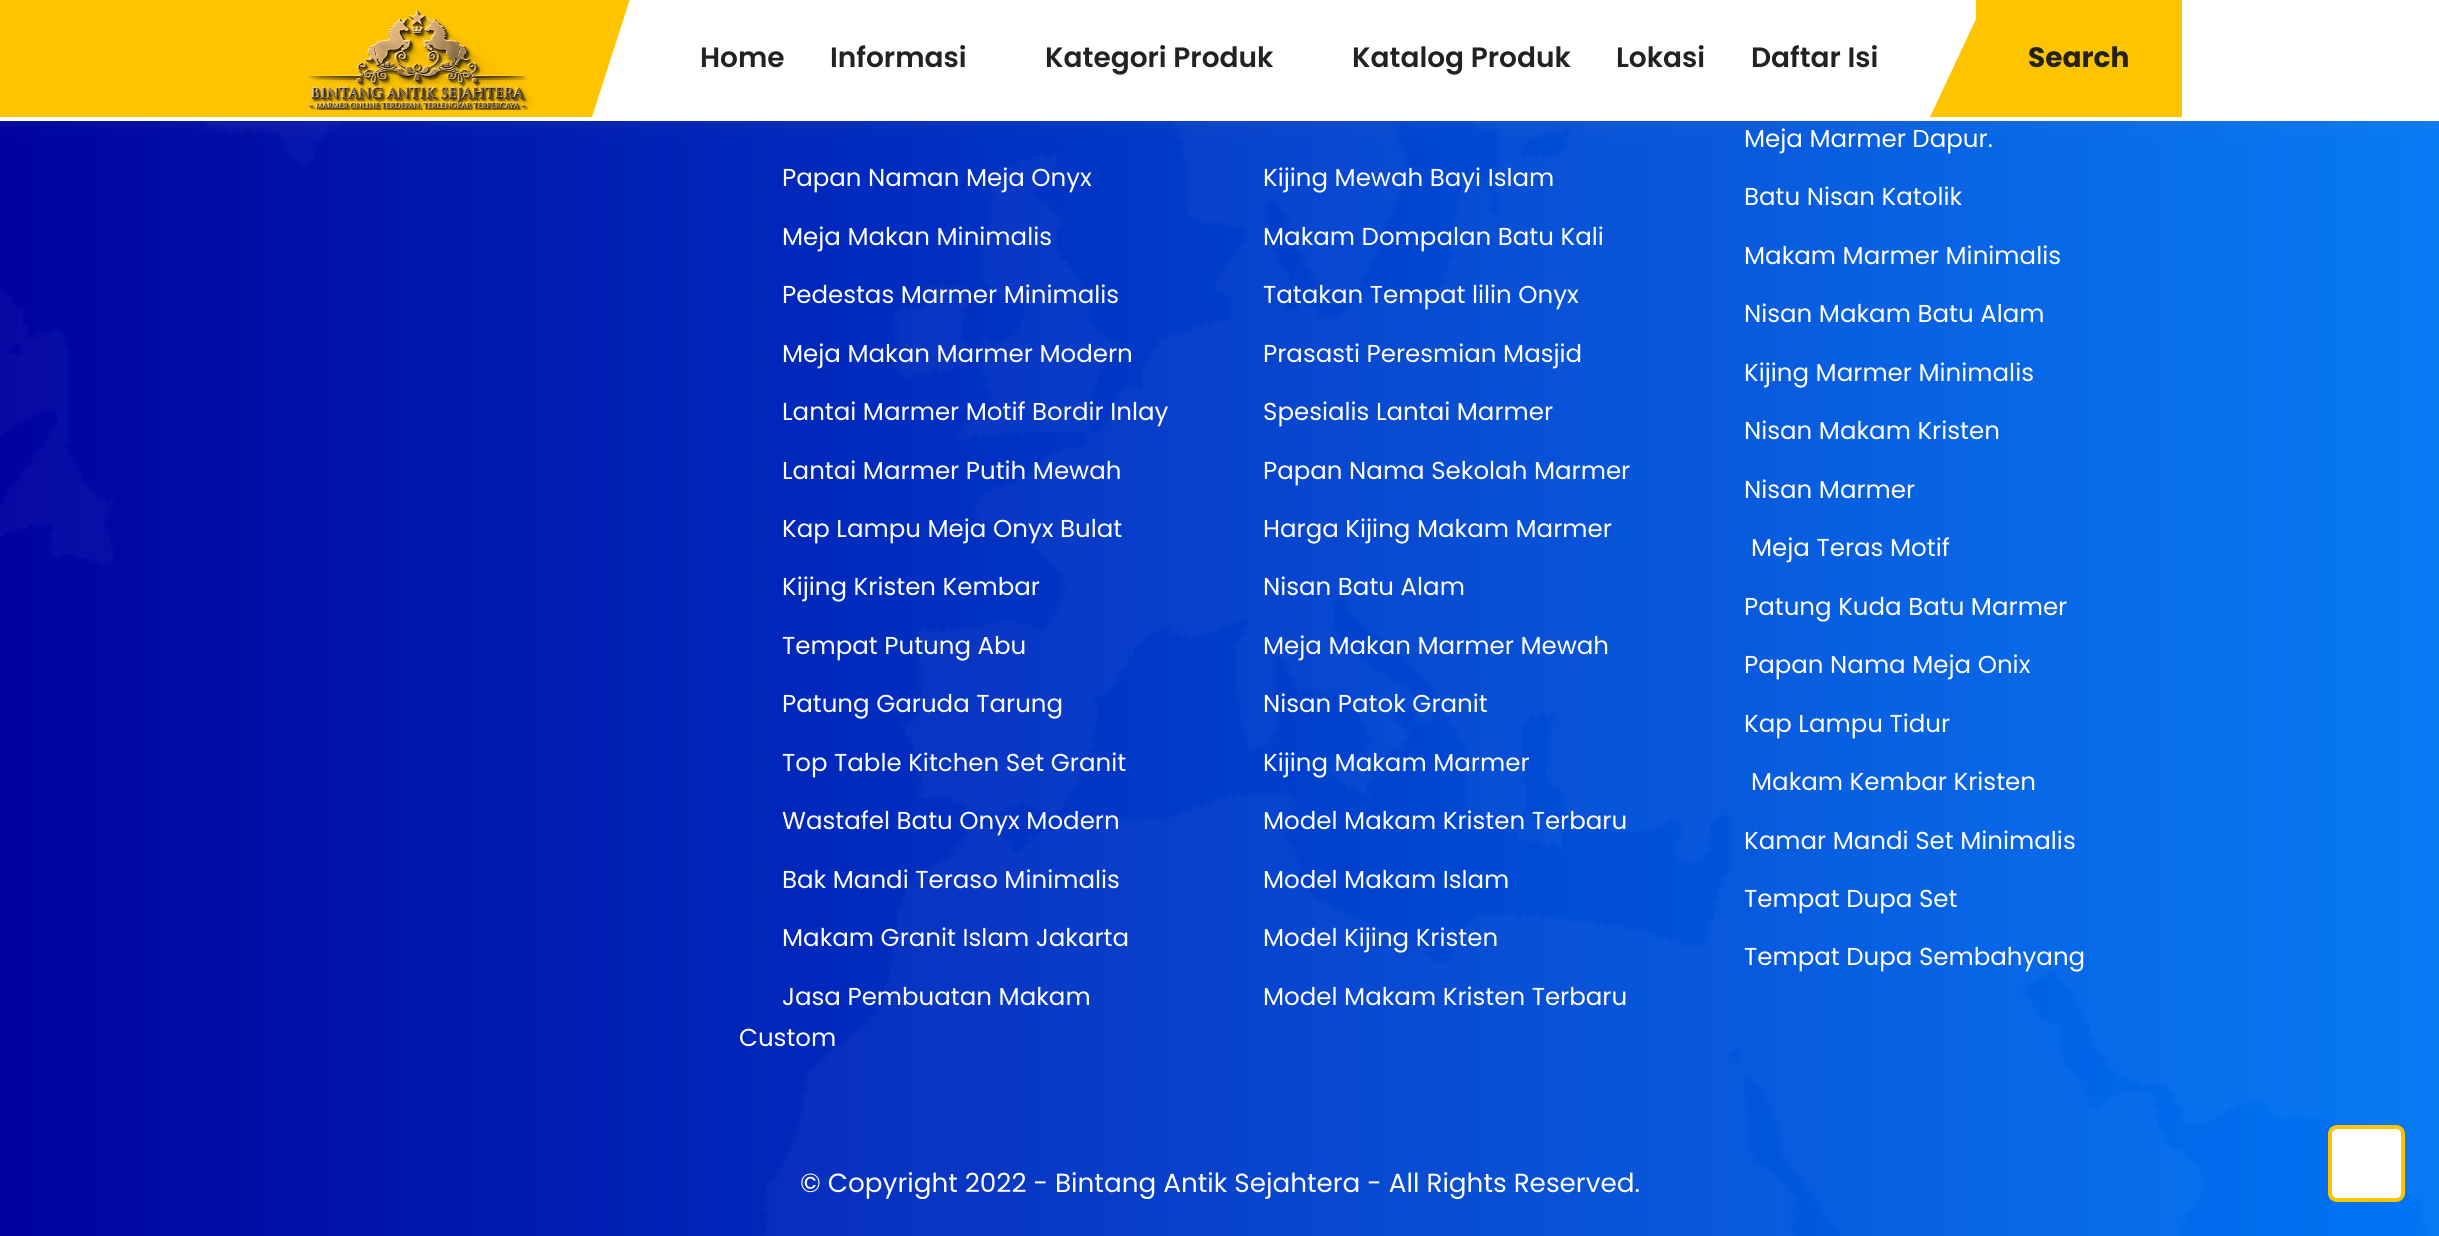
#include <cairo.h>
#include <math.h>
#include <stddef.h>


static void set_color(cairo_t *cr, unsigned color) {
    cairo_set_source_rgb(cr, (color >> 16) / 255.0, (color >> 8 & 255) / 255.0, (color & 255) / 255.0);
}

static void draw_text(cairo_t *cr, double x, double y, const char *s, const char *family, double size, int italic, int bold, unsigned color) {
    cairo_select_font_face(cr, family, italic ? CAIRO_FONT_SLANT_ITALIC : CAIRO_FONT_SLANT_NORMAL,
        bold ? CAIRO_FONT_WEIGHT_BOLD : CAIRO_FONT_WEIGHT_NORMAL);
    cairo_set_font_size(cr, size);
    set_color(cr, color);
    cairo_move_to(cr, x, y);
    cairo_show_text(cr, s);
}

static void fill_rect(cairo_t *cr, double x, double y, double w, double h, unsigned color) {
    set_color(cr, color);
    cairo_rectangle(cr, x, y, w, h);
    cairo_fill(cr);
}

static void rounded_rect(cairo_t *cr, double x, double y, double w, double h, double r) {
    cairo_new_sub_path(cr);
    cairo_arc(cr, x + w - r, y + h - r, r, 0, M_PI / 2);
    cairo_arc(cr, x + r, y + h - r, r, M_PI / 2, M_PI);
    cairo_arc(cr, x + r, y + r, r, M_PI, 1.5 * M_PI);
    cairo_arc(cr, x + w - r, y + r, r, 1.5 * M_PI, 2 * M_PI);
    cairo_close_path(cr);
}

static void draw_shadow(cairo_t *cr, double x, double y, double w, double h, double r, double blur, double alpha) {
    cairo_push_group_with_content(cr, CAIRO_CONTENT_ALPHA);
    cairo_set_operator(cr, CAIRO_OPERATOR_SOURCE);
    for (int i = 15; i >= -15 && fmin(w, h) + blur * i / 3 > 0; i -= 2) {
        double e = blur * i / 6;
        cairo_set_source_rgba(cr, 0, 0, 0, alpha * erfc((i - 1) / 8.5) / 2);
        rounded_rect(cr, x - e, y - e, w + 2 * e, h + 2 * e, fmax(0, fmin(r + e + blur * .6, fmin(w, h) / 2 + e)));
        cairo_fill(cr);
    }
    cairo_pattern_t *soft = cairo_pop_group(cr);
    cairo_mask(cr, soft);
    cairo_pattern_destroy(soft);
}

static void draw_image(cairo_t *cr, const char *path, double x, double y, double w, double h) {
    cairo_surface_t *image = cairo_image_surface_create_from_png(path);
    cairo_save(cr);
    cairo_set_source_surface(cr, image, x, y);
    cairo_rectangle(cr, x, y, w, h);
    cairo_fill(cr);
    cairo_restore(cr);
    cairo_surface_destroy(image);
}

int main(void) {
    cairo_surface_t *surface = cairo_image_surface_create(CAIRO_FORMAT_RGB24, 2439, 1236);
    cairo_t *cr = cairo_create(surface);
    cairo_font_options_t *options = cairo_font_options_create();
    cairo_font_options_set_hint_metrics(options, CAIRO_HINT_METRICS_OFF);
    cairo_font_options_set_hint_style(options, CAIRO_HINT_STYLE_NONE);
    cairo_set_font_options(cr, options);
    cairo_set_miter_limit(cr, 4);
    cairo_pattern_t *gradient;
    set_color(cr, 0xFFFFFF);
    cairo_paint(cr);
    gradient = cairo_pattern_create_linear(0, 223, 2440, 223);
    cairo_pattern_add_color_stop_rgba(gradient, 0, 0, 0.008, 0.627, 1);
    cairo_pattern_add_color_stop_rgba(gradient, 1, 0, 0.463, 0.957, 1);
    cairo_set_source(cr, gradient);
    cairo_pattern_destroy(gradient);
    cairo_rectangle(cr, 0, 121, 2439, 1115);
    cairo_fill(cr);
    draw_image(cr, "assets/img2.png", 0, 121, 2439, 1115);
    set_color(cr, 0x808080);
    draw_shadow(cr, 0, 0, 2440, 121, 0, 9, 0.14);
    fill_rect(cr, 0, 0, 2439, 121, 0xFFFFFF);
    set_color(cr, 0xFFC400);
    cairo_new_path(cr);
    cairo_move_to(cr, -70, -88);
    cairo_line_to(cr, 658, -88);
    cairo_line_to(cr, 592, 117);
    cairo_line_to(cr, -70, 117);
    cairo_close_path(cr);
    cairo_fill(cr);
    draw_image(cr, "assets/img1.png", 308, 10, 225, 101);
    draw_text(cr, 700, 67, "Home", "Poppins SemiBold", 28, 0, 0, 0x222222);
    draw_text(cr, 830, 67, "Informasi", "Poppins SemiBold", 28, 0, 0, 0x222222);
    draw_text(cr, 1045, 67, "Kategori Produk", "Poppins SemiBold", 28, 0, 0, 0x222222);
    draw_text(cr, 1352, 67, "Katalog Produk", "Poppins SemiBold", 28, 0, 0, 0x222222);
    draw_text(cr, 1616, 67, "Lokasi", "Poppins SemiBold", 28, 0, 0, 0x222222);
    draw_text(cr, 1751, 67, "Daftar Isi", "Poppins SemiBold", 28, 0, 0, 0x222222);
    fill_rect(cr, 1976, 0, 206, 117, 0xFFC400);
    cairo_new_path(cr);
    cairo_move_to(cr, 1983, 117);
    cairo_line_to(cr, 1930, 117);
    cairo_line_to(cr, 1983, 4);
    cairo_close_path(cr);
    cairo_fill(cr);
    draw_text(cr, 2028, 67, "Search", "Poppins", 28, 0, 1, 0x222222);
    draw_text(cr, 782, 186, "Papan Naman Meja Onyx", "Poppins", 24.5, 0, 0, 0xFFFFFF);
    draw_text(cr, 782, 245, "Meja Makan Minimalis", "Poppins", 24.5, 0, 0, 0xFFFFFF);
    draw_text(cr, 782, 303, "Pedestas Marmer Minimalis", "Poppins", 24.5, 0, 0, 0xFFFFFF);
    draw_text(cr, 782, 362, "Meja Makan Marmer Modern", "Poppins", 24.5, 0, 0, 0xFFFFFF);
    draw_text(cr, 782, 420, "Lantai Marmer Motif Bordir Inlay", "Poppins", 24.5, 0, 0, 0xFFFFFF);
    draw_text(cr, 782, 479, "Lantai Marmer Putih Mewah", "Poppins", 24.5, 0, 0, 0xFFFFFF);
    draw_text(cr, 782, 537, "Kap Lampu Meja Onyx Bulat", "Poppins", 24.5, 0, 0, 0xFFFFFF);
    draw_text(cr, 782, 595, "Kijing Kristen Kembar", "Poppins", 24.5, 0, 0, 0xFFFFFF);
    draw_text(cr, 782, 654, "Tempat Putung Abu", "Poppins", 24.5, 0, 0, 0xFFFFFF);
    draw_text(cr, 782, 712, "Patung Garuda Tarung", "Poppins", 24.5, 0, 0, 0xFFFFFF);
    draw_text(cr, 782, 771, "Top Table Kitchen Set Granit", "Poppins", 24.5, 0, 0, 0xFFFFFF);
    draw_text(cr, 782, 829, "Wastafel Batu Onyx Modern", "Poppins", 24.5, 0, 0, 0xFFFFFF);
    draw_text(cr, 782, 888, "Bak Mandi Teraso Minimalis", "Poppins", 24.5, 0, 0, 0xFFFFFF);
    draw_text(cr, 782, 946, "Makam Granit Islam Jakarta", "Poppins", 24.5, 0, 0, 0xFFFFFF);
    draw_text(cr, 782, 1005, "Jasa Pembuatan Makam", "Poppins", 24.5, 0, 0, 0xFFFFFF);
    draw_text(cr, 739, 1046, "Custom", "Poppins", 24.5, 0, 0, 0xFFFFFF);
    draw_text(cr, 1263, 186, "Kijing Mewah Bayi Islam", "Poppins", 24.5, 0, 0, 0xFFFFFF);
    draw_text(cr, 1263, 245, "Makam Dompalan Batu Kali", "Poppins", 24.5, 0, 0, 0xFFFFFF);
    draw_text(cr, 1263, 303, "Tatakan Tempat lilin Onyx", "Poppins", 24.5, 0, 0, 0xFFFFFF);
    draw_text(cr, 1263, 362, "Prasasti Peresmian Masjid", "Poppins", 24.5, 0, 0, 0xFFFFFF);
    draw_text(cr, 1263, 420, "Spesialis Lantai Marmer", "Poppins", 24.5, 0, 0, 0xFFFFFF);
    draw_text(cr, 1263, 479, "Papan Nama Sekolah Marmer", "Poppins", 24.5, 0, 0, 0xFFFFFF);
    draw_text(cr, 1263, 537, "Harga Kijing Makam Marmer", "Poppins", 24.5, 0, 0, 0xFFFFFF);
    draw_text(cr, 1263, 595, "Nisan Batu Alam", "Poppins", 24.5, 0, 0, 0xFFFFFF);
    draw_text(cr, 1263, 654, "Meja Makan Marmer Mewah", "Poppins", 24.5, 0, 0, 0xFFFFFF);
    draw_text(cr, 1263, 712, "Nisan Patok Granit", "Poppins", 24.5, 0, 0, 0xFFFFFF);
    draw_text(cr, 1263, 771, "Kijing Makam Marmer", "Poppins", 24.5, 0, 0, 0xFFFFFF);
    draw_text(cr, 1263, 829, "Model Makam Kristen Terbaru", "Poppins", 24.5, 0, 0, 0xFFFFFF);
    draw_text(cr, 1263, 888, "Model Makam Islam", "Poppins", 24.5, 0, 0, 0xFFFFFF);
    draw_text(cr, 1263, 946, "Model Kijing Kristen", "Poppins", 24.5, 0, 0, 0xFFFFFF);
    draw_text(cr, 1263, 1005, "Model Makam Kristen Terbaru", "Poppins", 24.5, 0, 0, 0xFFFFFF);
    draw_text(cr, 1744, 147, "Meja Marmer Dapur.", "Poppins", 24.5, 0, 0, 0xFFFFFF);
    draw_text(cr, 1744, 205, "Batu Nisan Katolik", "Poppins", 24.5, 0, 0, 0xFFFFFF);
    draw_text(cr, 1744, 264, "Makam Marmer Minimalis", "Poppins", 24.5, 0, 0, 0xFFFFFF);
    draw_text(cr, 1744, 322, "Nisan Makam Batu Alam", "Poppins", 24.5, 0, 0, 0xFFFFFF);
    draw_text(cr, 1744, 381, "Kijing Marmer Minimalis", "Poppins", 24.5, 0, 0, 0xFFFFFF);
    draw_text(cr, 1744, 439, "Nisan Makam Kristen", "Poppins", 24.5, 0, 0, 0xFFFFFF);
    draw_text(cr, 1744, 498, "Nisan Marmer", "Poppins", 24.5, 0, 0, 0xFFFFFF);
    draw_text(cr, 1751, 556, "Meja Teras Motif", "Poppins", 24.5, 0, 0, 0xFFFFFF);
    draw_text(cr, 1744, 615, "Patung Kuda Batu Marmer", "Poppins", 24.5, 0, 0, 0xFFFFFF);
    draw_text(cr, 1744, 673, "Papan Nama Meja Onix", "Poppins", 24.5, 0, 0, 0xFFFFFF);
    draw_text(cr, 1744, 732, "Kap Lampu Tidur", "Poppins", 24.5, 0, 0, 0xFFFFFF);
    draw_text(cr, 1751, 790, "Makam Kembar Kristen", "Poppins", 24.5, 0, 0, 0xFFFFFF);
    draw_text(cr, 1744, 849, "Kamar Mandi Set Minimalis", "Poppins", 24.5, 0, 0, 0xFFFFFF);
    draw_text(cr, 1744, 907, "Tempat Dupa Set", "Poppins", 24.5, 0, 0, 0xFFFFFF);
    draw_text(cr, 1744, 965, "Tempat Dupa Sembahyang", "Poppins", 24.5, 0, 0, 0xFFFFFF);
    draw_text(cr, 800, 1192, "© Copyright 2022 - Bintang Antik Sejahtera - All Rights Reserved.", "Poppins", 26.25, 0, 0, 0xFFFFFF);
    rounded_rect(cr, 2330, 1127, 73, 73, 7);
    cairo_fill_preserve(cr);
    set_color(cr, 0xFFC400);
    cairo_set_line_width(cr, 4);
    cairo_stroke(cr);
    cairo_surface_write_to_png(surface, "output.png");
    cairo_font_options_destroy(options);
    cairo_destroy(cr);
    cairo_surface_destroy(surface);
    return 0;
}
